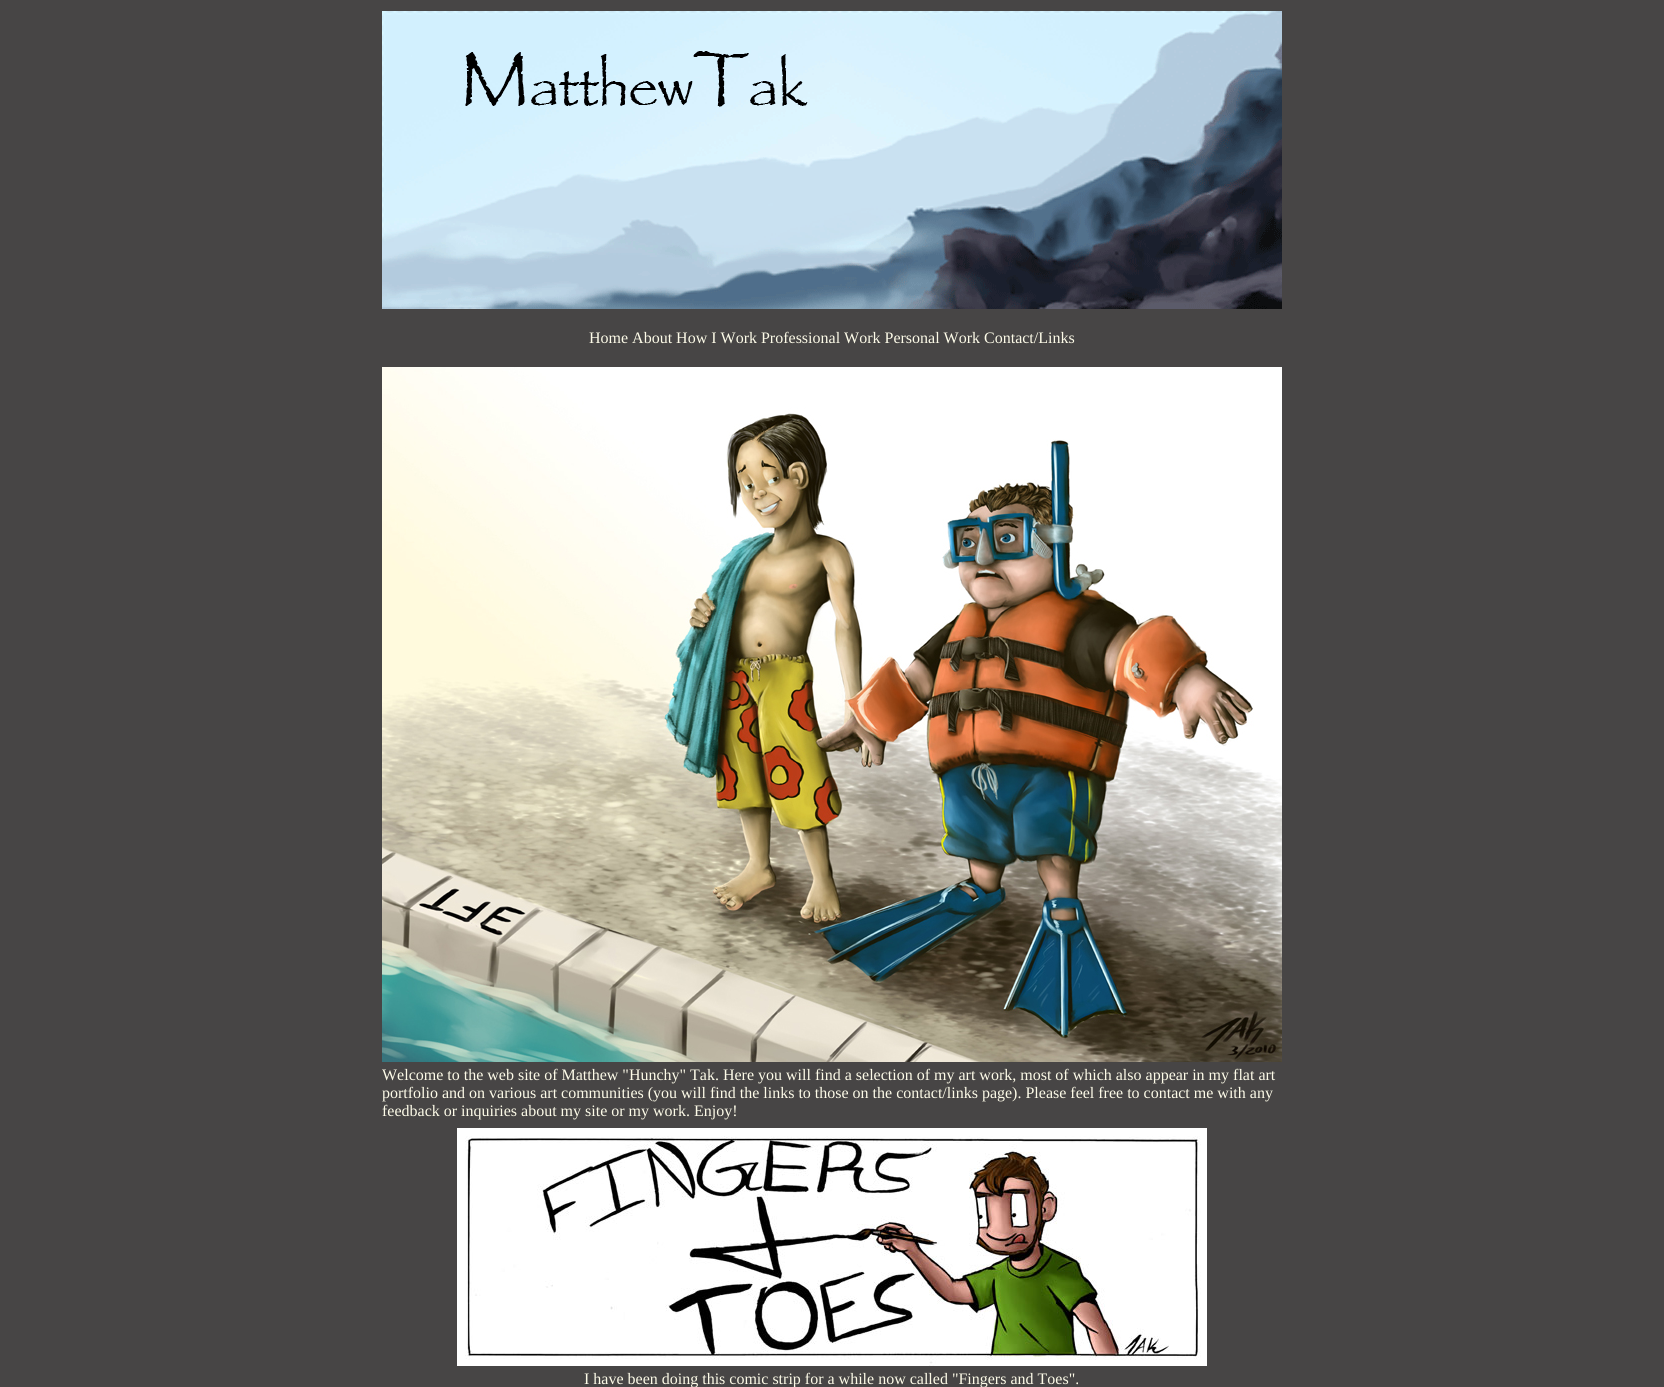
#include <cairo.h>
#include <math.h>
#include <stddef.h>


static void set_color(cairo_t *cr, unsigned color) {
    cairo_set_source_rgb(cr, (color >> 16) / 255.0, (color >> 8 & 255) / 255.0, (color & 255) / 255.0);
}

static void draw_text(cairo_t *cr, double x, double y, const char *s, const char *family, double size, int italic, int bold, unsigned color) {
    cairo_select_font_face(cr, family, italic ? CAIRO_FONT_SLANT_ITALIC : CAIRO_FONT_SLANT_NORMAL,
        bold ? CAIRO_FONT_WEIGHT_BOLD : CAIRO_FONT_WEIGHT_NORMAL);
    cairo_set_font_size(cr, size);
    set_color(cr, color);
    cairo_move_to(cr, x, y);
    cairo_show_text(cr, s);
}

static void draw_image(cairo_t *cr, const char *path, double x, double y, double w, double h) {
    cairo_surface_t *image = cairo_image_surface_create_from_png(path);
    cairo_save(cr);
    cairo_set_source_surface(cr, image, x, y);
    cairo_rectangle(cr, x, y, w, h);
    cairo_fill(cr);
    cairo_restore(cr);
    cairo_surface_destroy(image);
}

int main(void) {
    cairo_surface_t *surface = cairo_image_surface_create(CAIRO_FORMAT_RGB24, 1664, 1387);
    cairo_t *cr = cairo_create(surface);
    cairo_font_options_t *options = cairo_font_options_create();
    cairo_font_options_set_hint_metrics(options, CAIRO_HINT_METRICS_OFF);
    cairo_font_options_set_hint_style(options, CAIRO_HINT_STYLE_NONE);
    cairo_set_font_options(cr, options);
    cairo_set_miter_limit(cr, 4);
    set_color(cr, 0x474545);
    cairo_paint(cr);
    draw_image(cr, "assets/img1.png", 382, 11, 900, 298);
    draw_text(cr, 589, 343, "Home About How I Work Professional Work Personal Work Contact/Links", "Liberation Serif", 16, 0, 0, 0xFDFBE8);
    draw_image(cr, "assets/img2.png", 382, 367, 900, 695);
    draw_text(cr, 382, 1080, "Welcome to the web site of Matthew \"Hunchy\" Tak. Here you will find a selection of my art work, most of which also appear in my flat art", "Liberation Serif", 16, 0, 0, 0xFDFBE8);
    draw_text(cr, 382, 1098, "portfolio and on various art communities (you will find the links to those on the contact/links page). Please feel free to contact me with any", "Liberation Serif", 16, 0, 0, 0xFDFBE8);
    draw_text(cr, 382, 1116, "feedback or inquiries about my site or my work. Enjoy!", "Liberation Serif", 16, 0, 0, 0xFDFBE8);
    draw_image(cr, "assets/img3.png", 457, 1128, 750, 238);
    draw_text(cr, 584, 1384, "I have been doing this comic strip for a while now called \"Fingers and Toes\".", "Liberation Serif", 16, 0, 0, 0xFDFBE8);
    cairo_surface_write_to_png(surface, "output.png");
    cairo_font_options_destroy(options);
    cairo_destroy(cr);
    cairo_surface_destroy(surface);
    return 0;
}
